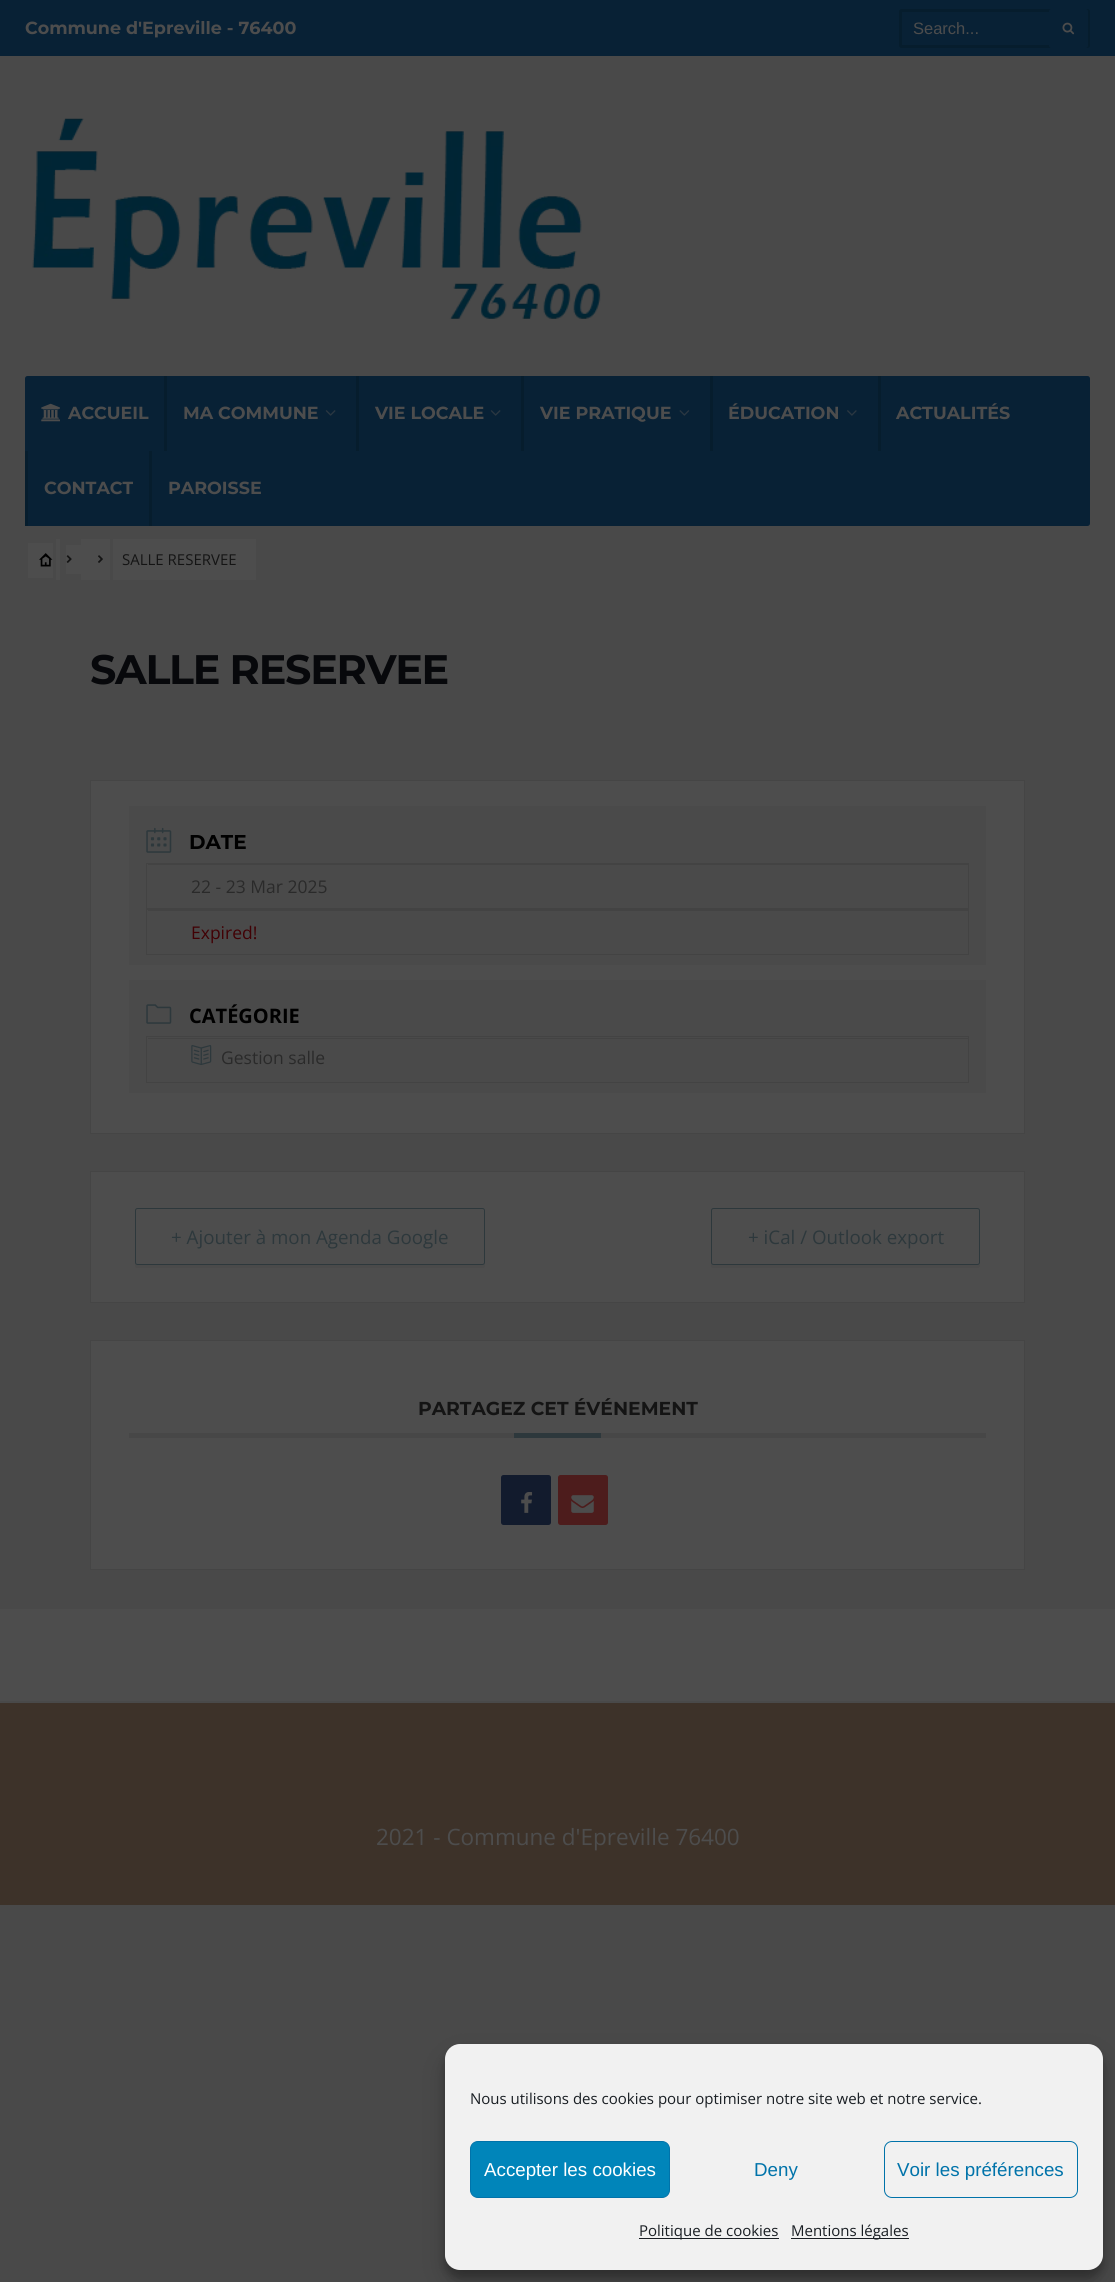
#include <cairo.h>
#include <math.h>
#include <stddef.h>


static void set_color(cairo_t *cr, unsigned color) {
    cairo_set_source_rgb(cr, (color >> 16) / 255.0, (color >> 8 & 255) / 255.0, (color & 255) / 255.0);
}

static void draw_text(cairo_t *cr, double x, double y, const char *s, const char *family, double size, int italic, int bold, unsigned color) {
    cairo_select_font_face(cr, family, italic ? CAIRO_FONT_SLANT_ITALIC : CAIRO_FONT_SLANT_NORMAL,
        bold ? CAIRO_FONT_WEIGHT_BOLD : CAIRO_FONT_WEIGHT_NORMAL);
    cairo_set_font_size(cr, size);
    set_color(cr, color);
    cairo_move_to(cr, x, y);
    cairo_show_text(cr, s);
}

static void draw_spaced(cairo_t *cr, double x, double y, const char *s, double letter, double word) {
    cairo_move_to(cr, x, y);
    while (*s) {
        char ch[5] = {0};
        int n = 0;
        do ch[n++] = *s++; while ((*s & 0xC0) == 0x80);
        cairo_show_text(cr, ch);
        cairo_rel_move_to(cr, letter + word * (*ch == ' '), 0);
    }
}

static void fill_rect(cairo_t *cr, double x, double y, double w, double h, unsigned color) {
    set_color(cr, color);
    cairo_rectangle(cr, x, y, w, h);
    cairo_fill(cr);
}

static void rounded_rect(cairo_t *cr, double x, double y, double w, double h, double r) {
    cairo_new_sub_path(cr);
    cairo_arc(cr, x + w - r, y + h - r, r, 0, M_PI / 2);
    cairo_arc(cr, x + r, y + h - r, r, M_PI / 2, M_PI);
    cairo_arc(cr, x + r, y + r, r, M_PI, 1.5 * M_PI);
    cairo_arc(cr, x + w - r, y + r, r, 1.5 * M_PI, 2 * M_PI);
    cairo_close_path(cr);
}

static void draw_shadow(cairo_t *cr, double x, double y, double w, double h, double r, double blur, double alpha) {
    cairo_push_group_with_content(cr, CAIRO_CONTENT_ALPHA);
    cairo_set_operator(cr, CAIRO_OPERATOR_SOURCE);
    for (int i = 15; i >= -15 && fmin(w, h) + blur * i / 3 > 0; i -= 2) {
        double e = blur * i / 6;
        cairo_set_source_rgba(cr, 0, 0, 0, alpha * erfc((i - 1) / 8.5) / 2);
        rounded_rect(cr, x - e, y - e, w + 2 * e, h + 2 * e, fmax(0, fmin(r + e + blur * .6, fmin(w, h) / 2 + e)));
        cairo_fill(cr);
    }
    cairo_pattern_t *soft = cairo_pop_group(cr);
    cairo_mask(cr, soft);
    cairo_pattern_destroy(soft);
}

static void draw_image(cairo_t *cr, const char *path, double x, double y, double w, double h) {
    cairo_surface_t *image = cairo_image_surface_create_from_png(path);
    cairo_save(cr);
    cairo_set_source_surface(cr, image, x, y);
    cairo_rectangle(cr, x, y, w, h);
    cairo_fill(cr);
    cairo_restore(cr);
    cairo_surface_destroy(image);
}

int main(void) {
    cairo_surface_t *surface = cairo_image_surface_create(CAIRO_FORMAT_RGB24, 1115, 2282);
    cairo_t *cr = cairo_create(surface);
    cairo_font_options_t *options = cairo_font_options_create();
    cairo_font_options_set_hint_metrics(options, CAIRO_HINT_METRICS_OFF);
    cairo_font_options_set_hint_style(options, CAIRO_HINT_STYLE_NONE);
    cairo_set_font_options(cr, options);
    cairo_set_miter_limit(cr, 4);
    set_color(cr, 0x494949);
    cairo_paint(cr);
    fill_rect(cr, 0, 0, 1115, 56, 0x082135);
    draw_text(cr, 25, 34, "Commune d'Epreville - 76400", "Montserrat", 17.5, 0, 1, 0x4D4D4D);
    rounded_rect(cr, 900.5, 10.5, 188, 36, 1);
    set_color(cr, 0x061D2D);
    cairo_set_line_width(cr, 3);
    cairo_stroke(cr);
    draw_text(cr, 913, 34, "Search...", "Liberation Sans", 16.5, 0, 0, 0x4D4D4D);
    set_color(cr, 0x082135);
    rounded_rect(cr, 1049, 9, 39, 39, 2.5);
    cairo_fill(cr);
    draw_image(cr, "assets/img1.png", 1062, 22, 13, 13);
    draw_image(cr, "assets/img2.png", 32, 118, 569, 201);
    rounded_rect(cr, 25, 376, 1065, 150, 2.5);
    cairo_fill(cr);
    draw_image(cr, "assets/img3.png", 41, 403, 19, 19);
    draw_text(cr, 68, 419, "ACCUEIL", "Montserrat", 17.5, 0, 1, 0x4D4D4D);
    fill_rect(cr, 164, 376, 3, 75, 0x061D2D);
    draw_text(cr, 183, 419, "MA COMMUNE", "Montserrat", 17.5, 0, 1, 0x4D4D4D);
    draw_image(cr, "assets/img4.png", 325, 410, 11, 6);
    fill_rect(cr, 356, 376, 3, 75, 0x061D2D);
    draw_text(cr, 375, 419, "VIE LOCALE", "Montserrat", 17.5, 0, 1, 0x4D4D4D);
    draw_image(cr, "assets/img4.png", 490, 410, 11, 6);
    fill_rect(cr, 521, 376, 3, 75, 0x061D2D);
    draw_text(cr, 540, 419, "VIE PRATIQUE", "Montserrat", 17.5, 0, 1, 0x4D4D4D);
    draw_image(cr, "assets/img5.png", 679, 410, 11, 6);
    fill_rect(cr, 710, 376, 3, 75, 0x061D2D);
    draw_text(cr, 728, 419, "ÉDUCATION", "Montserrat", 17.5, 0, 1, 0x4D4D4D);
    draw_image(cr, "assets/img6.png", 847, 410, 10, 6);
    fill_rect(cr, 878, 376, 3, 75, 0x061D2D);
    draw_text(cr, 896, 419, "ACTUALITÉS", "Montserrat", 17.5, 0, 1, 0x4D4D4D);
    fill_rect(cr, 25, 451, 3, 75, 0x061D2D);
    draw_text(cr, 44, 494, "CONTACT", "Montserrat", 17.5, 0, 1, 0x4D4D4D);
    fill_rect(cr, 149, 451, 3, 75, 0x061D2D);
    draw_text(cr, 168, 494, "PAROISSE", "Montserrat", 17.5, 0, 1, 0x4D4D4D);
    fill_rect(cr, 28, 543, 25, 35, 0x4D4D4D);
    fill_rect(cr, 56, 539, 4, 41, 0x4D4D4D);
    fill_rect(cr, 66, 545, 15, 29, 0x4D4D4D);
    draw_image(cr, "assets/img7.png", 39, 553, 14, 14);
    draw_image(cr, "assets/img8.png", 66, 555, 6, 8);
    fill_rect(cr, 81, 539, 29, 41, 0x4D4D4D);
    draw_image(cr, "assets/img9.png", 98, 555, 5, 8);
    fill_rect(cr, 113, 539, 143, 41, 0x4D4D4D);
    draw_text(cr, 122, 565, "SALLE RESERVEE", "Open Sans", 15, 0, 0, 0x141414);
    cairo_select_font_face(cr, "Montserrat", CAIRO_FONT_SLANT_NORMAL, CAIRO_FONT_WEIGHT_BOLD);
    cairo_set_font_size(cr, 41.25);
    set_color(cr, 0x07080B);
    draw_spaced(cr, 90, 684, "SALLE RESERVEE", -1.25, 0);
    set_color(cr, 0x4D4D4D);
    cairo_rectangle(cr, 90.5, 780.5, 934, 353);
    cairo_fill_preserve(cr);
    set_color(cr, 0x454545);
    cairo_set_line_width(cr, 1);
    cairo_stroke(cr);
    fill_rect(cr, 129, 806, 857, 159, 0x4A4A4A);
    draw_image(cr, "assets/img10.png", 146, 827, 26, 26);
    draw_text(cr, 189, 849, "DATE", "Montserrat", 20, 0, 1, 0x000000);
    cairo_rectangle(cr, 146.5, 863.5, 822, 45);
    set_color(cr, 0x434343);
    cairo_stroke(cr);
    fill_rect(cr, 148, 864, 820, 1, 0x434343);
    draw_text(cr, 191, 893, "22 - 23 Mar 2025", "Open Sans", 17.5, 0, 0, 0x2A2A2A);
    cairo_rectangle(cr, 146.5, 909.5, 822, 45);
    set_color(cr, 0x434343);
    cairo_stroke(cr);
    fill_rect(cr, 148, 910, 820, 1, 0x434343);
    draw_text(cr, 191, 939, "Expired!", "Open Sans", 17.5, 0, 0, 0x410004);
    fill_rect(cr, 129, 980, 857, 113, 0x4A4A4A);
    draw_image(cr, "assets/img11.png", 146, 1004, 26, 20);
    draw_text(cr, 189, 1023, "CATÉGORIE", "Open Sans", 20, 0, 1, 0x000000);
    cairo_rectangle(cr, 146.5, 1036.5, 822, 46);
    set_color(cr, 0x434343);
    cairo_stroke(cr);
    fill_rect(cr, 148, 1038, 820, 1, 0x434343);
    draw_image(cr, "assets/img12.png", 191, 1045, 21, 20);
    draw_text(cr, 221, 1064, "Gestion salle", "Open Sans", 17.5, 0, 0, 0x2A2A2A);
    set_color(cr, 0x4D4D4D);
    cairo_rectangle(cr, 90.5, 1171.5, 934, 131);
    cairo_fill_preserve(cr);
    set_color(cr, 0x454545);
    cairo_stroke(cr);
    set_color(cr, 0x4A4A4A);
    cairo_new_path(cr);
    cairo_move_to(cr, 135, 1262);
    cairo_line_to(cr, 135, 1266);
    cairo_curve_to(cr, 135, 1267, 136, 1268, 138, 1268);
    cairo_line_to(cr, 482, 1268);
    cairo_curve_to(cr, 484, 1268, 485, 1267, 485, 1266);
    cairo_line_to(cr, 485, 1262);
    cairo_curve_to(cr, 485, 1264, 484, 1265, 482, 1265);
    cairo_line_to(cr, 138, 1265);
    cairo_curve_to(cr, 136, 1265, 135, 1264, 135, 1262);
    cairo_close_path(cr);
    cairo_fill(cr);
    rounded_rect(cr, 135.5, 1208.5, 349, 56, 2);
    set_color(cr, 0x2D383C);
    cairo_stroke(cr);
    draw_text(cr, 171, 1244, "+ Ajouter à mon Agenda Google", "Open Sans", 18.75, 0, 0, 0x2D383C);
    set_color(cr, 0x4A4A4A);
    cairo_new_path(cr);
    cairo_move_to(cr, 711, 1211);
    cairo_line_to(cr, 711, 1266);
    cairo_curve_to(cr, 711, 1267, 712, 1268, 714, 1268);
    cairo_line_to(cr, 978, 1268);
    cairo_curve_to(cr, 979, 1268, 980, 1267, 980, 1266);
    cairo_line_to(cr, 980, 1262);
    cairo_curve_to(cr, 980, 1264, 979, 1265, 978, 1265);
    cairo_line_to(cr, 714, 1265);
    cairo_curve_to(cr, 712, 1265, 711, 1264, 711, 1262);
    cairo_close_path(cr);
    cairo_fill(cr);
    rounded_rect(cr, 711.5, 1208.5, 268, 56, 2);
    set_color(cr, 0x2D383C);
    cairo_stroke(cr);
    draw_text(cr, 748, 1244, "+ iCal / Outlook export", "Open Sans", 18.75, 0, 0, 0x2D383C);
    set_color(cr, 0x4D4D4D);
    cairo_rectangle(cr, 90.5, 1340.5, 934, 229);
    cairo_fill_preserve(cr);
    set_color(cr, 0x454545);
    cairo_stroke(cr);
    fill_rect(cr, 129, 1433, 857, 5, 0x474747);
    draw_text(cr, 418, 1415, "PARTAGEZ CET ÉVÉNEMENT", "Montserrat", 18.75, 0, 1, 0x141414);
    fill_rect(cr, 514, 1433, 87, 5, 0x2D383C);
    set_color(cr, 0x121B2D);
    rounded_rect(cr, 501, 1475, 50, 50, 2.5);
    cairo_fill(cr);
    draw_image(cr, "assets/img13.png", 521, 1492, 12, 21);
    set_color(cr, 0x4D1C1C);
    rounded_rect(cr, 558, 1475, 50, 50, 2.5);
    cairo_fill(cr);
    draw_image(cr, "assets/img14.png", 571, 1495, 23, 18);
    fill_rect(cr, 0, 1609, 1115, 92, 0x4D4D4D);
    fill_rect(cr, 0, 1703, 1115, 202, 0x3D3229);
    draw_text(cr, 376, 1845, "2021 - Commune d'Epreville 76400", "Open Sans", 22.5, 0, 0, 0x4D4D4D);
    set_color(cr, 0x000000);
    draw_shadow(cr, 445, 2051, 658, 227, 15, 4, 0.23);
    draw_shadow(cr, 445, 2056, 658, 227, 15, 12.5, 0.19);
    set_color(cr, 0xF1F1F1);
    rounded_rect(cr, 445, 2044, 658, 226, 15);
    cairo_fill(cr);
    draw_text(cr, 470, 2104, "Nous utilisons des cookies pour optimiser notre site web et notre service.", "Open Sans", 15, 0, 0, 0x191E23);
    set_color(cr, 0x0085BA);
    rounded_rect(cr, 470.5, 2141.5, 199, 56, 7.5);
    cairo_fill_preserve(cr);
    set_color(cr, 0x0073AA);
    cairo_stroke(cr);
    draw_text(cr, 484, 2176, "Accepter les cookies", "Liberation Sans", 18.75, 0, 0, 0xFFFFFF);
    draw_text(cr, 754, 2176, "Deny", "Liberation Sans", 18.75, 0, 0, 0x0073AA);
    rounded_rect(cr, 884.5, 2141.5, 193, 56, 7.5);
    cairo_stroke(cr);
    draw_text(cr, 897, 2176, "Voir les préférences", "Liberation Sans", 18.75, 0, 0, 0x0073AA);
    fill_rect(cr, 639, 2238, 140, 1, 0x191E23);
    draw_text(cr, 639, 2236, "Politique de cookies", "Open Sans", 15, 0, 0, 0x191E23);
    fill_rect(cr, 791, 2238, 118, 1, 0x191E23);
    draw_text(cr, 791, 2236, "Mentions légales", "Open Sans", 15, 0, 0, 0x191E23);
    cairo_surface_write_to_png(surface, "output.png");
    cairo_font_options_destroy(options);
    cairo_destroy(cr);
    cairo_surface_destroy(surface);
    return 0;
}
